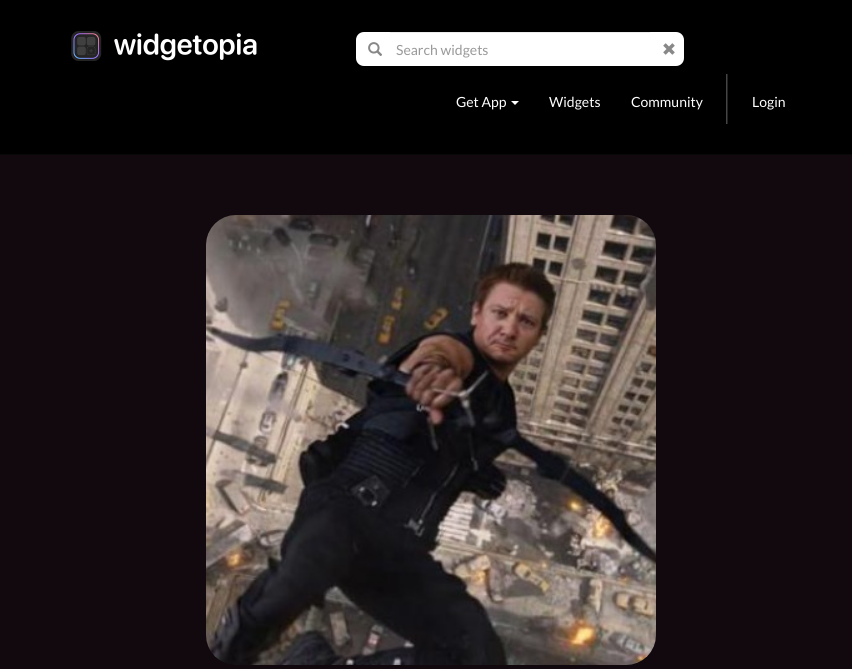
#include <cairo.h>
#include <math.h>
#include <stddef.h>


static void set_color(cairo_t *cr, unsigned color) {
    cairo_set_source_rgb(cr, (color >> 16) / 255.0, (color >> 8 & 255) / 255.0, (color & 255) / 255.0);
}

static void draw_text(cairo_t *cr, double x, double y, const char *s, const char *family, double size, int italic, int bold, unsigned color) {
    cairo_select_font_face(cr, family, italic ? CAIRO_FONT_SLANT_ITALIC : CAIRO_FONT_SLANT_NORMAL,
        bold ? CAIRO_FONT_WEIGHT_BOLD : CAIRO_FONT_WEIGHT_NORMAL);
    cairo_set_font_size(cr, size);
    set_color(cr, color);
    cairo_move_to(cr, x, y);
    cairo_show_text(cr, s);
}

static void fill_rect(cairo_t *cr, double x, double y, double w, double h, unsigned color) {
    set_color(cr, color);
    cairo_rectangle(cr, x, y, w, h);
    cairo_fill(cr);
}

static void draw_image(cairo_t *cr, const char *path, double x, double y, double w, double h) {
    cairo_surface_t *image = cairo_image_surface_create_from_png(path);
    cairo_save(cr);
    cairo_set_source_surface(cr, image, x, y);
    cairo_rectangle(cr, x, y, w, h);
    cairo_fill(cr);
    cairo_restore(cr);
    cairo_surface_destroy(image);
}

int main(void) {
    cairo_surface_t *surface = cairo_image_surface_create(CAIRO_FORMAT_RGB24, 852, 669);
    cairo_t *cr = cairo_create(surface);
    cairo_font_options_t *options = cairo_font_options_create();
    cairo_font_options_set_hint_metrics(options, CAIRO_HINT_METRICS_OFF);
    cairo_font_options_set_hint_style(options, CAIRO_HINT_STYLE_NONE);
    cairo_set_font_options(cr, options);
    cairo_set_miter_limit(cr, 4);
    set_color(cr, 0x12090F);
    cairo_paint(cr);
    fill_rect(cr, 0, 0, 852, 154, 0x000000);
    fill_rect(cr, 0, 154, 852, 1, 0x080808);
    draw_image(cr, "assets/img1.png", 71, 31, 186, 30);
    set_color(cr, 0xFFFFFF);
    cairo_new_path(cr);
    cairo_move_to(cr, 364, 32);
    cairo_line_to(cr, 390, 32);
    cairo_line_to(cr, 390, 66);
    cairo_line_to(cr, 364, 66);
    cairo_curve_to(cr, 359.5, 66, 356, 62.5, 356, 58);
    cairo_line_to(cr, 356, 40);
    cairo_curve_to(cr, 356, 35.5, 359.5, 32, 364, 32);
    cairo_close_path(cr);
    cairo_fill(cr);
    draw_image(cr, "assets/img2.png", 368, 42, 14, 14);
    fill_rect(cr, 390, 33, 260, 33, 0xFFFFFF);
    fill_rect(cr, 390, 32, 260, 1, 0xECECEC);
    draw_text(cr, 396, 55, "Search widgets", "Lato", 14, 0, 0, 0x999999);
    set_color(cr, 0xFFFFFF);
    cairo_new_path(cr);
    cairo_move_to(cr, 650, 32);
    cairo_line_to(cr, 676, 32);
    cairo_curve_to(cr, 680.5, 32, 684, 35.5, 684, 40);
    cairo_line_to(cr, 684, 58);
    cairo_curve_to(cr, 684, 62.5, 680.5, 66, 676, 66);
    cairo_line_to(cr, 650, 66);
    cairo_close_path(cr);
    cairo_fill(cr);
    draw_image(cr, "assets/img3.png", 663, 43, 12, 12);
    draw_text(cr, 456, 107, "Get App", "Lato", 14, 0, 0, 0xFFFFFF);
    cairo_new_path(cr);
    cairo_move_to(cr, 511, 101);
    cairo_line_to(cr, 519, 101);
    cairo_line_to(cr, 515, 105);
    cairo_close_path(cr);
    cairo_fill(cr);
    draw_text(cr, 549, 107, "Widgets", "Lato", 14, 0, 0, 0xFFFFFF);
    draw_text(cr, 631, 107, "Community", "Lato", 14, 0, 0, 0xFFFFFF);
    fill_rect(cr, 727, 74, 1, 50, 0x222222);
    fill_rect(cr, 726, 74, 1, 50, 0x444444);
    draw_text(cr, 752, 107, "Login", "Lato", 14, 0, 0, 0xFFFFFF);
    draw_image(cr, "assets/img4.png", 206, 215, 450, 450);
    cairo_surface_write_to_png(surface, "output.png");
    cairo_font_options_destroy(options);
    cairo_destroy(cr);
    cairo_surface_destroy(surface);
    return 0;
}
